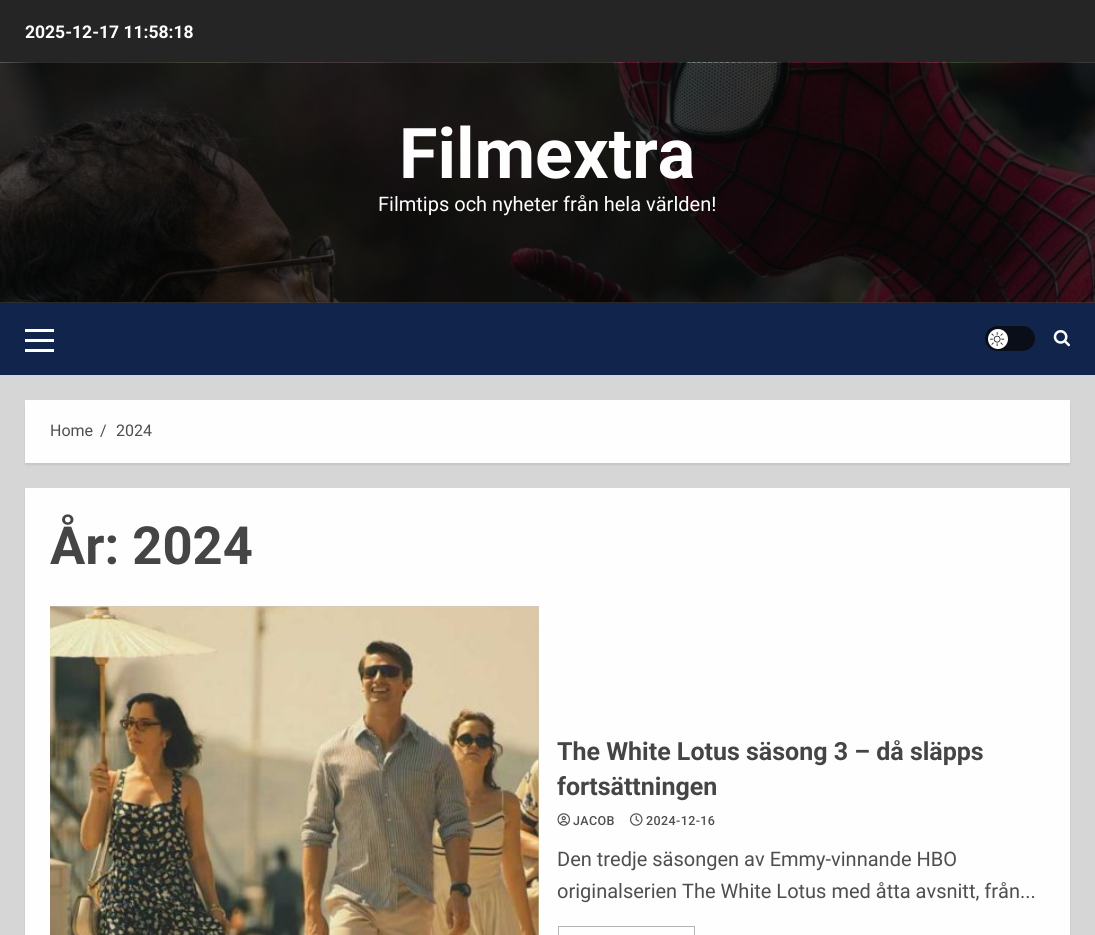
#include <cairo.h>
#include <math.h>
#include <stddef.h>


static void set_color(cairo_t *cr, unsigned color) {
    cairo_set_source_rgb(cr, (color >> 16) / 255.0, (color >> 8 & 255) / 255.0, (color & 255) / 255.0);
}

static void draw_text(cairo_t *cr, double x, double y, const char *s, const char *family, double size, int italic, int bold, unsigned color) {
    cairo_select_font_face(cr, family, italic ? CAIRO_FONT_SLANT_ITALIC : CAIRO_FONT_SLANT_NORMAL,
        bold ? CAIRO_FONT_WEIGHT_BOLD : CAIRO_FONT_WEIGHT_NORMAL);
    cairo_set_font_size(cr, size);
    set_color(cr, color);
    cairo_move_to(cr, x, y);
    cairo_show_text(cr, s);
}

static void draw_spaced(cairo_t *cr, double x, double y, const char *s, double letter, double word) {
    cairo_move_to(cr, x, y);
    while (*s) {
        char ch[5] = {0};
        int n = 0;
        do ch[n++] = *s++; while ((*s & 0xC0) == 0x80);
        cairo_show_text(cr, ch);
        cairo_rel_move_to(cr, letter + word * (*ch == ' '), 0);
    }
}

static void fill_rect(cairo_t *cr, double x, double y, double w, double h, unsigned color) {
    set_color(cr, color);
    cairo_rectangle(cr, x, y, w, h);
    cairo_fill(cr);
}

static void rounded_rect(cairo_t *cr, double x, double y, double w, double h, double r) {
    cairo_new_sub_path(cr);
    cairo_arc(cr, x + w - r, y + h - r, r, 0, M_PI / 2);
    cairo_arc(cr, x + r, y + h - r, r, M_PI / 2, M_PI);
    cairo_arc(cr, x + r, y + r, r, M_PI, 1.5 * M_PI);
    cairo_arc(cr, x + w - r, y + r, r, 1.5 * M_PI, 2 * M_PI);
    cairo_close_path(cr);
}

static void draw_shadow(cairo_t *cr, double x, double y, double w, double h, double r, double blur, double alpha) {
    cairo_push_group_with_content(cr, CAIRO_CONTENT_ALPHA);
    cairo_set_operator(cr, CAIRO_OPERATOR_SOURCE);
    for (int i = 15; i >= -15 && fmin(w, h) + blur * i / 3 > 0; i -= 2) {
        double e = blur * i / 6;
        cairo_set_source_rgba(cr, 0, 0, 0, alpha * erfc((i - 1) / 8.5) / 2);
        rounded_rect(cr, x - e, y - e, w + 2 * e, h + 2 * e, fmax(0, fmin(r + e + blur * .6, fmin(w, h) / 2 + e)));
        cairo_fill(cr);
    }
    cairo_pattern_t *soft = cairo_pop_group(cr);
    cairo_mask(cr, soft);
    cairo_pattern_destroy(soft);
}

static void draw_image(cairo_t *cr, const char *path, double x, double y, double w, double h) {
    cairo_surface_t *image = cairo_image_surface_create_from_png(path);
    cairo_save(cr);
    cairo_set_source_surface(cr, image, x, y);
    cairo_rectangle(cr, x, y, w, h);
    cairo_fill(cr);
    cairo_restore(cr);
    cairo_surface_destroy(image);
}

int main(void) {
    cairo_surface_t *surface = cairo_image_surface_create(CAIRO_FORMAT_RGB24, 1095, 935);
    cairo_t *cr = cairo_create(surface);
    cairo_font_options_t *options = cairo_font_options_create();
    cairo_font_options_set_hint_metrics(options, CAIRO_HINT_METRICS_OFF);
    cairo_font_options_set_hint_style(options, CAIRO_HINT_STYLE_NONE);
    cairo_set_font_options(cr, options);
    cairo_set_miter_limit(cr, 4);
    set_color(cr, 0xD6D6D6);
    cairo_paint(cr);
    fill_rect(cr, 0, 0, 1095, 63, 0x252525);
    draw_text(cr, 25, 38, "2025-12-17 11:58:18", "Roboto", 17.5, 0, 1, 0xFEFEFE);
    fill_rect(cr, 0, 302, 1095, 1, 0x454545);
    draw_image(cr, "assets/img1.png", 0, 62, 1095, 241);
    draw_text(cr, 399, 178, "Filmextra", "Roboto", 70, 0, 1, 0xFEFEFE);
    draw_text(cr, 378, 211, "Filmtips och nyheter från hela världen!", "Roboto", 20, 0, 0, 0xFEFEFE);
    fill_rect(cr, 0, 303, 1095, 72, 0x11254C);
    fill_rect(cr, 25, 339, 29, 3, 0xFEFEFE);
    fill_rect(cr, 25, 329, 29, 3, 0xFEFEFE);
    fill_rect(cr, 25, 349, 29, 3, 0xFEFEFE);
    set_color(cr, 0x090E18);
    rounded_rect(cr, 985, 326, 50, 25, 12.5);
    cairo_fill(cr);
    set_color(cr, 0xFEFEFE);
    cairo_arc(cr, 998, 339, 10, 0, 2 * M_PI);
    cairo_fill(cr);
    draw_image(cr, "assets/img2.png", 990, 332, 15, 14);
    draw_image(cr, "assets/img3.png", 1053, 330, 17, 17);
    set_color(cr, 0x060606);
    draw_shadow(cr, 25, 403, 1045, 62, 0, 1, 0.08);
    fill_rect(cr, 25, 400, 1045, 63, 0xFEFEFE);
    draw_text(cr, 50, 436, "Home", "Roboto", 16, 0, 0, 0x4E4E4E);
    draw_text(cr, 100, 436, "/", "Roboto", 16, 0, 0, 0x4E4E4E);
    draw_text(cr, 116, 436, "2024", "Roboto", 16, 0, 0, 0x4E4E4E);
    set_color(cr, 0x060606);
    draw_shadow(cr, 25, 490, 1045, 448, 0, 1, 0.08);
    fill_rect(cr, 25, 488, 1045, 447, 0xFEFEFE);
    draw_text(cr, 50, 564, "År: 2024", "Roboto", 52.5, 0, 1, 0x454545);
    fill_rect(cr, 50, 606, 489, 329, 0xCCCCCC);
    draw_image(cr, "assets/img4.png", 50, 606, 489, 329);
    draw_text(cr, 557, 760, "The White Lotus säsong 3 – då släpps", "Roboto", 25, 0, 1, 0x454545);
    draw_text(cr, 557, 795, "fortsättningen", "Roboto", 25, 0, 1, 0x454545);
    draw_image(cr, "assets/img5.png", 557, 813, 13, 13);
    cairo_select_font_face(cr, "Roboto Medium", CAIRO_FONT_SLANT_NORMAL, CAIRO_FONT_WEIGHT_NORMAL);
    cairo_set_font_size(cr, 12.5);
    set_color(cr, 0x4E4E4E);
    draw_spaced(cr, 573, 825, "JACOB", 0.4, 0);
    draw_image(cr, "assets/img6.png", 630, 813, 13, 13);
    draw_spaced(cr, 646, 825, "2024-12-16", 0.4, 0);
    draw_text(cr, 557, 866, "Den tredje säsongen av Emmy-vinnande HBO", "Roboto", 20, 0, 0, 0x4E4E4E);
    draw_text(cr, 557, 898, "originalserien The White Lotus med åtta avsnitt, från...", "Roboto", 20, 0, 0, 0x4E4E4E);
    cairo_rectangle(cr, 558.5, 926.5, 136, 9);
    set_color(cr, 0xB4B4B4);
    cairo_set_line_width(cr, 1);
    cairo_stroke(cr);
    cairo_surface_write_to_png(surface, "output.png");
    cairo_font_options_destroy(options);
    cairo_destroy(cr);
    cairo_surface_destroy(surface);
    return 0;
}
